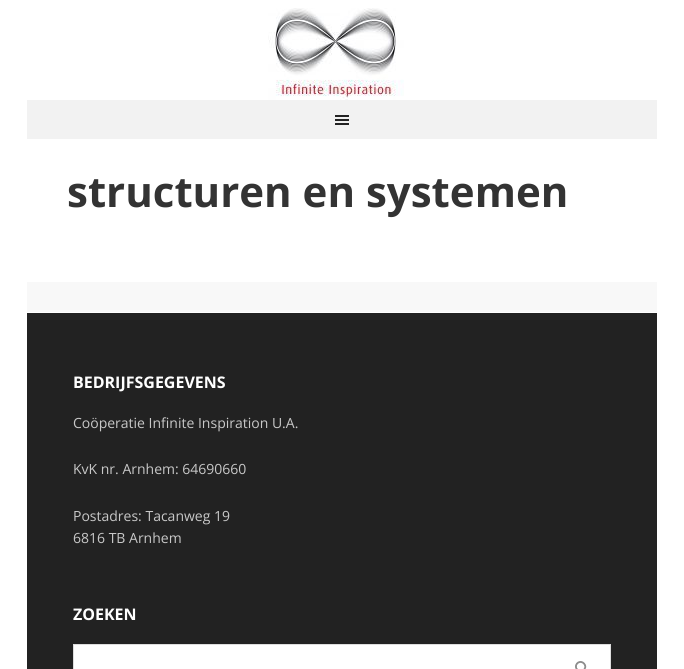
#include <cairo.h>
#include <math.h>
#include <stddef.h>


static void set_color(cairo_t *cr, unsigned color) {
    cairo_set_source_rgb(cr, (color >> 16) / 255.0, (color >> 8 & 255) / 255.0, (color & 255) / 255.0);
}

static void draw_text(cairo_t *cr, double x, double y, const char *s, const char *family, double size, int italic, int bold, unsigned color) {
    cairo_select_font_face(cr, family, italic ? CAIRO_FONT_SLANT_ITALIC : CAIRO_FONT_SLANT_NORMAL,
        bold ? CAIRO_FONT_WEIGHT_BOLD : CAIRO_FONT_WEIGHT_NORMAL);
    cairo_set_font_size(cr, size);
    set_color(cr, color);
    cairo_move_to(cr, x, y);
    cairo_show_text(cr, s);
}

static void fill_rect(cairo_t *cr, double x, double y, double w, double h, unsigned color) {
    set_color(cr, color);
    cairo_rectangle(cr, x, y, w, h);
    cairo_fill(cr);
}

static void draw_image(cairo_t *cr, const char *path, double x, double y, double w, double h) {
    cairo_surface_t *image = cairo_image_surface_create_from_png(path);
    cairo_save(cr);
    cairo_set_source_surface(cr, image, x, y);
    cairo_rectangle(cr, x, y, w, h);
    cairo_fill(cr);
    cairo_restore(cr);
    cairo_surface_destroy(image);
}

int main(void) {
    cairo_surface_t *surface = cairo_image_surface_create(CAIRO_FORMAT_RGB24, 684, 669);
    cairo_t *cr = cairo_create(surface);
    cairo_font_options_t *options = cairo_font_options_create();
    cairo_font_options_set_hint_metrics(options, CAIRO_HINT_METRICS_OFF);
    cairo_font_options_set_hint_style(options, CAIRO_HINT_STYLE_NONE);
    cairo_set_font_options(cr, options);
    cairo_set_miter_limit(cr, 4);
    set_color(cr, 0xFFFFFF);
    cairo_paint(cr);
    draw_image(cr, "assets/img1.png", 268, 8, 136, 92);
    fill_rect(cr, 27, 100, 630, 39, 0xF2F2F2);
    draw_image(cr, "assets/img2.png", 335, 115, 14, 10);
    draw_text(cr, 67, 207, "structuren en systemen", "Open Sans", 42, 0, 1, 0x333333);
    fill_rect(cr, 27, 282, 630, 30, 0xF8F8F8);
    fill_rect(cr, 27, 313, 630, 356, 0x222222);
    draw_text(cr, 73, 388, "BEDRIJFSGEGEVENS", "Open Sans", 16, 0, 1, 0xFFFFFF);
    draw_text(cr, 73, 428, "Coöperatie Infinite Inspiration U.A.", "Open Sans", 14, 0, 0, 0xC8C8C8);
    draw_text(cr, 73, 474, "KvK nr. Arnhem: 64690660", "Open Sans", 14, 0, 0, 0xC8C8C8);
    draw_text(cr, 73, 521, "Postadres: Tacanweg 19", "Open Sans", 14, 0, 0, 0xC8C8C8);
    draw_text(cr, 73, 543, "6816 TB Arnhem", "Open Sans", 14, 0, 0, 0xC8C8C8);
    draw_text(cr, 73, 620, "ZOEKEN", "Open Sans", 16, 0, 1, 0xFFFFFF);
    fill_rect(cr, 74, 645, 536, 24, 0xFFFFFF);
    draw_image(cr, "assets/img3.png", 575, 661, 12, 8);
    cairo_rectangle(cr, 73.5, 644.5, 537, 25);
    set_color(cr, 0xDDDDDD);
    cairo_set_line_width(cr, 1);
    cairo_stroke(cr);
    cairo_surface_write_to_png(surface, "output.png");
    cairo_font_options_destroy(options);
    cairo_destroy(cr);
    cairo_surface_destroy(surface);
    return 0;
}
